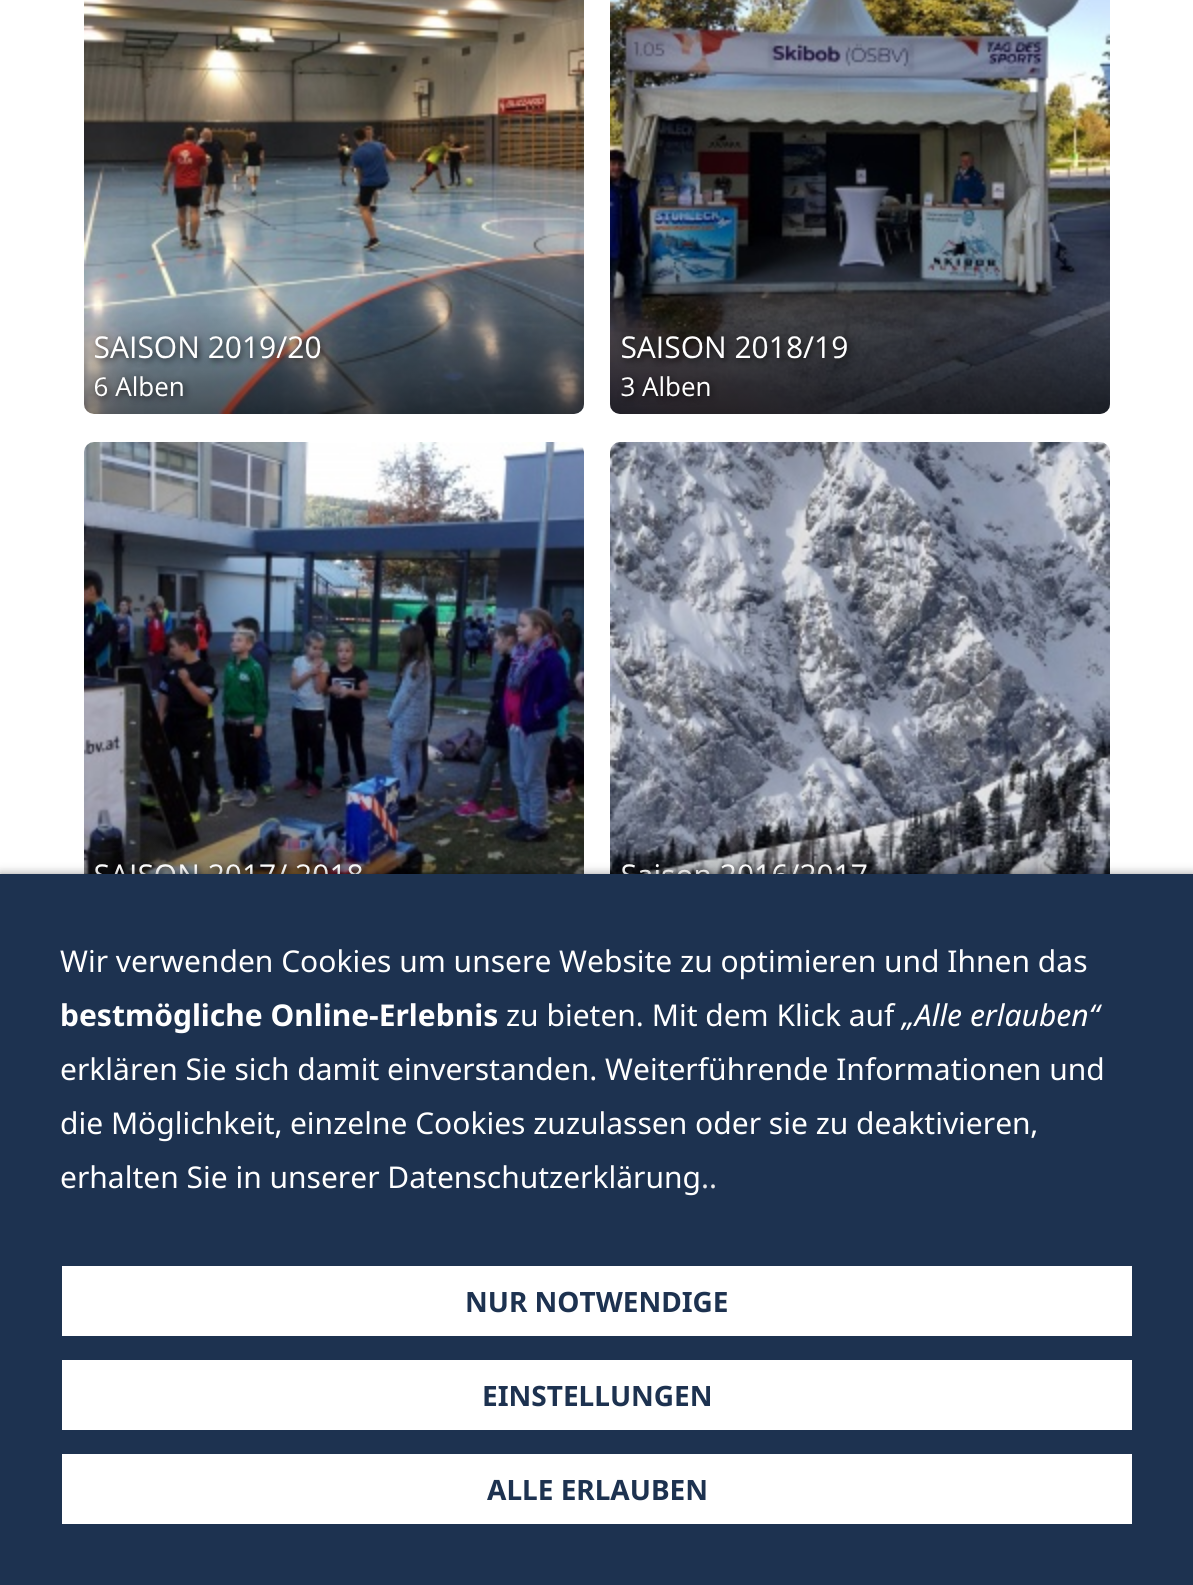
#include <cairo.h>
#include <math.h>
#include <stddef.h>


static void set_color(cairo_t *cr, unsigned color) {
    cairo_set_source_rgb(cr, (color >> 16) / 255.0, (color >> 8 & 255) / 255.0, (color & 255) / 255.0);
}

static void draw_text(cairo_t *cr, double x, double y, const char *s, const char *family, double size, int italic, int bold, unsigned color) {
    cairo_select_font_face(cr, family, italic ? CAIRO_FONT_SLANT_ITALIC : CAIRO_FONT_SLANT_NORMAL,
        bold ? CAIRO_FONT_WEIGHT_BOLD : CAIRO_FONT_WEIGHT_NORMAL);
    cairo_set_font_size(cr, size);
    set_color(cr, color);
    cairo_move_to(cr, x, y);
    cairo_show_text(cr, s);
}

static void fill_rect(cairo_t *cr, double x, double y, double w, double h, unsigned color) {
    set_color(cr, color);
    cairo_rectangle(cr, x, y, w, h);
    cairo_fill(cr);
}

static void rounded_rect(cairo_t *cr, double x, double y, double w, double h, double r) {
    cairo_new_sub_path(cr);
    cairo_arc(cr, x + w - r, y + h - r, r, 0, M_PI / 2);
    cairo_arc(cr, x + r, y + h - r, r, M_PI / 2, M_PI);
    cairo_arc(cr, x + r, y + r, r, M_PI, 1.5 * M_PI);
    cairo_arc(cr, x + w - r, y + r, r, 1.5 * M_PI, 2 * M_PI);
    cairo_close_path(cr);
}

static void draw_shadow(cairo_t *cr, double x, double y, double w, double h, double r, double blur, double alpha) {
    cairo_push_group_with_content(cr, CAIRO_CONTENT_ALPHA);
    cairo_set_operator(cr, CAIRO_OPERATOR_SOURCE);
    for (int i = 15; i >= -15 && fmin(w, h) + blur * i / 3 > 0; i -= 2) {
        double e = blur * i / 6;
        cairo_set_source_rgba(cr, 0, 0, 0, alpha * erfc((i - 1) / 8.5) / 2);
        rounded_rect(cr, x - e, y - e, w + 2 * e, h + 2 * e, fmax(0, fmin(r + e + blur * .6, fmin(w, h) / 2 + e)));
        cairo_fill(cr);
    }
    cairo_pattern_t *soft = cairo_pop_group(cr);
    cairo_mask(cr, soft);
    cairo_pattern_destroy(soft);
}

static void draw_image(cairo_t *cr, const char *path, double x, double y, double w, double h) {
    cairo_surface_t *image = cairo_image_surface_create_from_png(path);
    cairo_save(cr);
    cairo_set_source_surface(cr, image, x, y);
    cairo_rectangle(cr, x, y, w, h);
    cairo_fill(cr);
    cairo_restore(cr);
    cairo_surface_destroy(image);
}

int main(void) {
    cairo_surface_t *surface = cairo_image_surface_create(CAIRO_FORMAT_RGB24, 1193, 1585);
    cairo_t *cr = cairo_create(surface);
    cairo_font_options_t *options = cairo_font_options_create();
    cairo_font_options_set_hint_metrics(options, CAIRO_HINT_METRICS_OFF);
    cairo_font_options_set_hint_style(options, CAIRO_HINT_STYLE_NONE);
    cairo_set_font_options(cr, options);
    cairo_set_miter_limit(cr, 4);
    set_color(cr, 0xFFFFFF);
    cairo_paint(cr);
    draw_image(cr, "assets/img1.png", 84, 0, 1026, 874);
    set_color(cr, 0x000000);
    draw_shadow(cr, 0, 874, 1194, 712, 0, 5, 0.4);
    fill_rect(cr, 0, 874, 1193, 711, 0x1D3250);
    draw_text(cr, 60, 972, "Wir verwenden Cookies um unsere Website zu optimieren und Ihnen das", "Noto Sans", 30, 0, 0, 0xFFFFFF);
    draw_text(cr, 60, 1026, "bestmögliche Online-Erlebnis", "Noto Sans", 30, 0, 1, 0xFFFFFF);
    draw_text(cr, 506, 1026, "zu bieten. Mit dem Klick auf", "Noto Sans", 30, 0, 0, 0xFFFFFF);
    draw_text(cr, 902, 1026, "„Alle erlauben“", "Noto Sans", 30, 1, 0, 0xFFFFFF);
    draw_text(cr, 60, 1080, "erklären Sie sich damit einverstanden. Weiterführende Informationen und", "Noto Sans", 30, 0, 0, 0xFFFFFF);
    draw_text(cr, 60, 1134, "die Möglichkeit, einzelne Cookies zuzulassen oder sie zu deaktivieren,", "Noto Sans", 30, 0, 0, 0xFFFFFF);
    draw_text(cr, 60, 1188, "erhalten Sie in unserer Datenschutzerklärung", "Noto Sans", 30, 0, 0, 0xFFFFFF);
    draw_text(cr, 701, 1188, "..", "Noto Sans", 30, 0, 0, 0xEBEBEB);
    fill_rect(cr, 62, 1266, 1070, 70, 0xFFFFFF);
    draw_text(cr, 465, 1312, "NUR NOTWENDIGE", "Noto Sans", 28, 0, 1, 0x1D3250);
    fill_rect(cr, 62, 1360, 1070, 70, 0xFFFFFF);
    draw_text(cr, 482, 1406, "EINSTELLUNGEN", "Noto Sans", 28, 0, 1, 0x1D3250);
    fill_rect(cr, 62, 1454, 1070, 70, 0xFFFFFF);
    draw_text(cr, 487, 1500, "ALLE ERLAUBEN", "Noto Sans", 28, 0, 1, 0x1D3250);
    cairo_surface_write_to_png(surface, "output.png");
    cairo_font_options_destroy(options);
    cairo_destroy(cr);
    cairo_surface_destroy(surface);
    return 0;
}
